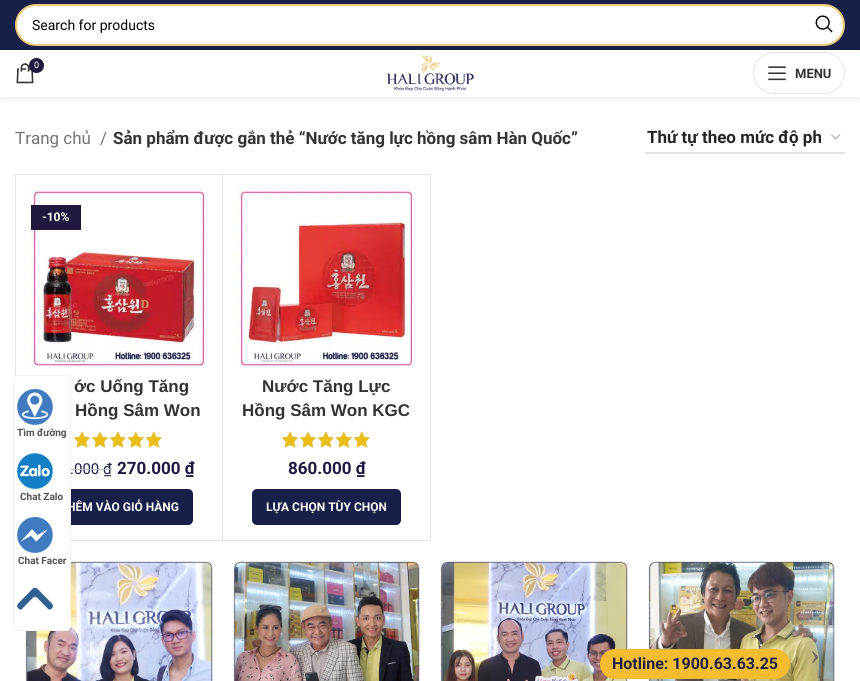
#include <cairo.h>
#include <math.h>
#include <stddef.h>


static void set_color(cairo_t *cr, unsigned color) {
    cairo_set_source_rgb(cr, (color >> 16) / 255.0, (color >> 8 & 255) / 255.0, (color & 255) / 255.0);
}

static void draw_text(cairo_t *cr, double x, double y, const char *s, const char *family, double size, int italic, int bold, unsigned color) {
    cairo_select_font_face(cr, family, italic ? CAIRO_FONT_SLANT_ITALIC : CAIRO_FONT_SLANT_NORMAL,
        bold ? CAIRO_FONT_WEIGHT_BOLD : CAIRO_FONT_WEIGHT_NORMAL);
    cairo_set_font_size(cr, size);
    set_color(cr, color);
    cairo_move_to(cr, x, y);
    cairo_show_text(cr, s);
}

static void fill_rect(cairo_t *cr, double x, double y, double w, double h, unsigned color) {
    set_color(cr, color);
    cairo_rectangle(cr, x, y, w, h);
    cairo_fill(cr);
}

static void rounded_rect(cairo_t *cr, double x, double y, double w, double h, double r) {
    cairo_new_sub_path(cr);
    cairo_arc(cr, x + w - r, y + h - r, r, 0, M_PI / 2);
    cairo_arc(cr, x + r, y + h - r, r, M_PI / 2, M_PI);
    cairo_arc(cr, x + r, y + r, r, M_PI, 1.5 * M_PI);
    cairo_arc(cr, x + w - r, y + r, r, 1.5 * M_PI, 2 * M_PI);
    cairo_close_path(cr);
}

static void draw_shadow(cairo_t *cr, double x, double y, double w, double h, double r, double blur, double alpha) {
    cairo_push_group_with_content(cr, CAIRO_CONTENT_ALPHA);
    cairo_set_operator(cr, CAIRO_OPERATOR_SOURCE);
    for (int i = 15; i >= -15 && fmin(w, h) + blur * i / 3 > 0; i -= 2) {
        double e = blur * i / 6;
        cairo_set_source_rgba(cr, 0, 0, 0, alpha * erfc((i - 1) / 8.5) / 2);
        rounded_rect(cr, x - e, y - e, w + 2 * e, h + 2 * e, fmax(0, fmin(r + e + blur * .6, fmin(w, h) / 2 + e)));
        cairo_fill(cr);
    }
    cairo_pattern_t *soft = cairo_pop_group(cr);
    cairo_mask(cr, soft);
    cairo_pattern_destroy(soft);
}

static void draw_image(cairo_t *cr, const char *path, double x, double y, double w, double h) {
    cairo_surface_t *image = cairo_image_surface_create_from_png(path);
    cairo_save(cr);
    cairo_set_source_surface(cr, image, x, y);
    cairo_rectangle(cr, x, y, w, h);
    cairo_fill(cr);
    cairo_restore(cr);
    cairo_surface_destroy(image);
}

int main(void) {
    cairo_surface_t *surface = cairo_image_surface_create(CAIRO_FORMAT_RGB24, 860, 681);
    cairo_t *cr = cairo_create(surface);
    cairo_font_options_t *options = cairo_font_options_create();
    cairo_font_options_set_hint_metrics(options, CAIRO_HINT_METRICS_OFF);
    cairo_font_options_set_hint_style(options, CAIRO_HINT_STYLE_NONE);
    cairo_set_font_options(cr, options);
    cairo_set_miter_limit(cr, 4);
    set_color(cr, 0xFFFFFF);
    cairo_paint(cr);
    fill_rect(cr, 0, 0, 860, 50, 0x181F49);
    cairo_save(cr);
    cairo_set_fill_rule(cr, CAIRO_FILL_RULE_EVEN_ODD);
    cairo_new_path(cr);
    cairo_move_to(cr, 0, 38);
    cairo_line_to(cr, 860, 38);
    cairo_line_to(cr, 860, 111);
    cairo_line_to(cr, 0, 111);
    cairo_close_path(cr);
    cairo_move_to(cr, 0, 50);
    cairo_line_to(cr, 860, 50);
    cairo_line_to(cr, 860, 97);
    cairo_line_to(cr, 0, 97);
    cairo_close_path(cr);
    cairo_clip(cr);
    set_color(cr, 0x000000);
    draw_shadow(cr, 0, 51, 860, 47, 0, 4, 0.1);
    cairo_restore(cr);
    set_color(cr, 0xFFFFFF);
    rounded_rect(cr, 16, 5, 828, 40, 20);
    cairo_fill_preserve(cr);
    set_color(cr, 0xECC777);
    cairo_stroke(cr);
    draw_text(cr, 32, 30, "Search for products", "Roboto", 14, 0, 0, 0x000000);
    draw_image(cr, "assets/img1.png", 815, 15, 18, 18);
    draw_image(cr, "assets/img2.png", 16, 63, 18, 21);
    set_color(cr, 0x22173F);
    cairo_arc(cr, 36.5, 65.5, 7.5, 0, 2 * M_PI);
    cairo_fill(cr);
    draw_text(cr, 34, 68, "0", "Roboto", 9, 0, 0, 0xFFFFFF);
    draw_image(cr, "assets/img3.png", 386, 55, 89, 36);
    rounded_rect(cr, 753.5, 52.5, 91, 41, 20.5);
    set_color(cr, 0xE4E4E4);
    cairo_set_line_width(cr, 1);
    cairo_stroke(cr);
    draw_image(cr, "assets/img4.png", 768, 66, 18, 15);
    draw_text(cr, 795, 78, "MENU", "Roboto", 13, 0, 1, 0x333333);
    draw_text(cr, 15, 144, "Trang chủ", "Roboto", 17, 0, 0, 0x767676);
    draw_text(cr, 100, 144, "/", "Roboto", 17, 0, 0, 0x767676);
    draw_text(cr, 113, 144, "Sản phẩm được gắn thẻ “Nước tăng lực hồng sâm Hàn Quốc”", "Roboto", 17, 0, 1, 0x333333);
    cairo_new_path(cr);
    cairo_move_to(cr, 831.5, 134.5);
    cairo_line_to(cr, 835.5, 139);
    cairo_line_to(cr, 840, 134.5);
    set_color(cr, 0xBBBBBB);
    cairo_set_line_width(cr, 1.4);
    cairo_stroke(cr);
    fill_rect(cr, 645, 152, 200, 2, 0xE6E6E6);
    draw_text(cr, 647, 143, "Thứ tự theo mức độ ph", "Roboto", 17, 0, 1, 0x242424);
    fill_rect(cr, 15, 174, 1, 202, 0xE4E4E4);
    cairo_new_path(cr);
    cairo_move_to(cr, 16, 174);
    cairo_line_to(cr, 223, 174);
    cairo_line_to(cr, 222, 175);
    cairo_line_to(cr, 16, 175);
    cairo_close_path(cr);
    cairo_fill(cr);
    cairo_set_source_rgba(cr, 0, 0, 0, 0.11);
    cairo_new_path(cr);
    cairo_move_to(cr, 223, 174);
    cairo_line_to(cr, 223, 541);
    cairo_line_to(cr, 222, 540);
    cairo_line_to(cr, 222, 175);
    cairo_close_path(cr);
    cairo_fill(cr);
    cairo_new_path(cr);
    cairo_move_to(cr, 223, 541);
    cairo_line_to(cr, 16, 541);
    cairo_line_to(cr, 16, 540);
    cairo_line_to(cr, 222, 540);
    cairo_close_path(cr);
    cairo_fill(cr);
    draw_image(cr, "assets/img5.png", 31, 190, 176, 177);
    fill_rect(cr, 31, 205, 50, 25, 0x22173F);
    draw_text(cr, 42, 221, "-10%", "Roboto", 12, 0, 1, 0xFFFFFF);
    draw_text(cr, 74, 392, "ớc Uống Tăng", "Liberation Sans", 17, 0, 1, 0x333333);
    draw_text(cr, 75, 416, "Hồng Sâm Won", "Liberation Sans", 17, 0, 1, 0x333333);
    draw_image(cr, "assets/img6.png", 74, 431, 88, 17);
    draw_image(cr, "assets/img7.png", 74, 431, 88, 17);
    draw_text(cr, 70, 474, ".000 ₫", "Roboto", 15, 0, 0, 0x181F49);
    fill_rect(cr, 71, 469, 41, 1, 0xBBBBBB);
    draw_text(cr, 117, 474, "270.000 ₫", "Roboto", 17, 0, 1, 0x22173F);
    set_color(cr, 0x181F49);
    rounded_rect(cr, 45, 489, 148, 36, 5);
    cairo_fill(cr);
    draw_text(cr, 67, 511, "HÊM VÀO GIỎ HÀNG", "Roboto", 12, 0, 1, 0xFFFFFF);
    set_color(cr, 0xE4E4E4);
    cairo_new_path(cr);
    cairo_move_to(cr, 223, 174);
    cairo_line_to(cr, 431, 174);
    cairo_line_to(cr, 430, 175);
    cairo_line_to(cr, 223, 175);
    cairo_close_path(cr);
    cairo_fill(cr);
    cairo_set_source_rgba(cr, 0, 0, 0, 0.11);
    cairo_new_path(cr);
    cairo_move_to(cr, 431, 174);
    cairo_line_to(cr, 431, 541);
    cairo_line_to(cr, 430, 540);
    cairo_line_to(cr, 430, 175);
    cairo_close_path(cr);
    cairo_fill(cr);
    cairo_new_path(cr);
    cairo_move_to(cr, 431, 541);
    cairo_line_to(cr, 223, 541);
    cairo_line_to(cr, 223, 540);
    cairo_line_to(cr, 430, 540);
    cairo_close_path(cr);
    cairo_fill(cr);
    draw_image(cr, "assets/img8.png", 238, 190, 175, 177);
    draw_text(cr, 262, 392, "Nước Tăng Lực", "Liberation Sans", 17, 0, 1, 0x333333);
    draw_text(cr, 242, 416, "Hồng Sâm Won KGC", "Liberation Sans", 17, 0, 1, 0x333333);
    draw_image(cr, "assets/img6.png", 282, 431, 88, 17);
    draw_image(cr, "assets/img7.png", 282, 431, 88, 17);
    draw_text(cr, 288, 474, "860.000 ₫", "Roboto", 17, 0, 1, 0x22173F);
    set_color(cr, 0x181F49);
    rounded_rect(cr, 252, 489, 149, 36, 5);
    cairo_fill(cr);
    draw_text(cr, 266, 511, "LỰA CHỌN TÙY CHỌN", "Roboto", 12, 0, 1, 0xFFFFFF);
    draw_image(cr, "assets/img9.png", 25, 561, 188, 120);
    draw_image(cr, "assets/img10.png", 233, 561, 187, 120);
    draw_image(cr, "assets/img11.png", 440, 561, 188, 120);
    draw_image(cr, "assets/img12.png", 648, 561, 187, 120);
    draw_text(cr, 810, 664, "›", "Liberation Serif", 30, 0, 0, 0x6F665E);
    set_color(cr, 0xFFFFFF);
    rounded_rect(cr, 13.5, 375.5, 57, 255, 4.5);
    cairo_fill_preserve(cr);
    set_color(cr, 0xF2F2F2);
    cairo_set_line_width(cr, 1);
    cairo_stroke(cr);
    draw_image(cr, "assets/img13.png", 17, 389, 36, 36);
    draw_text(cr, 17, 436, "Tìm đường", "Roboto", 10, 0, 1, 0x515151);
    draw_image(cr, "assets/img14.png", 17, 453, 36, 36);
    draw_text(cr, 20, 500, "Chat Zalo", "Roboto", 10, 0, 1, 0x515151);
    draw_image(cr, "assets/img15.png", 17, 517, 36, 36);
    draw_text(cr, 18, 564, "Chat Facer", "Roboto", 10, 0, 1, 0x515151);
    draw_image(cr, "assets/img16.png", 17, 587, 36, 23);
    set_color(cr, 0xF5BC2F);
    rounded_rect(cr, 600, 649, 190, 30, 15);
    cairo_fill(cr);
    draw_text(cr, 612, 669, "Hotline: 1900.63.63.25", "Roboto", 16, 0, 1, 0x181F49);
    cairo_surface_write_to_png(surface, "output.png");
    cairo_font_options_destroy(options);
    cairo_destroy(cr);
    cairo_surface_destroy(surface);
    return 0;
}
